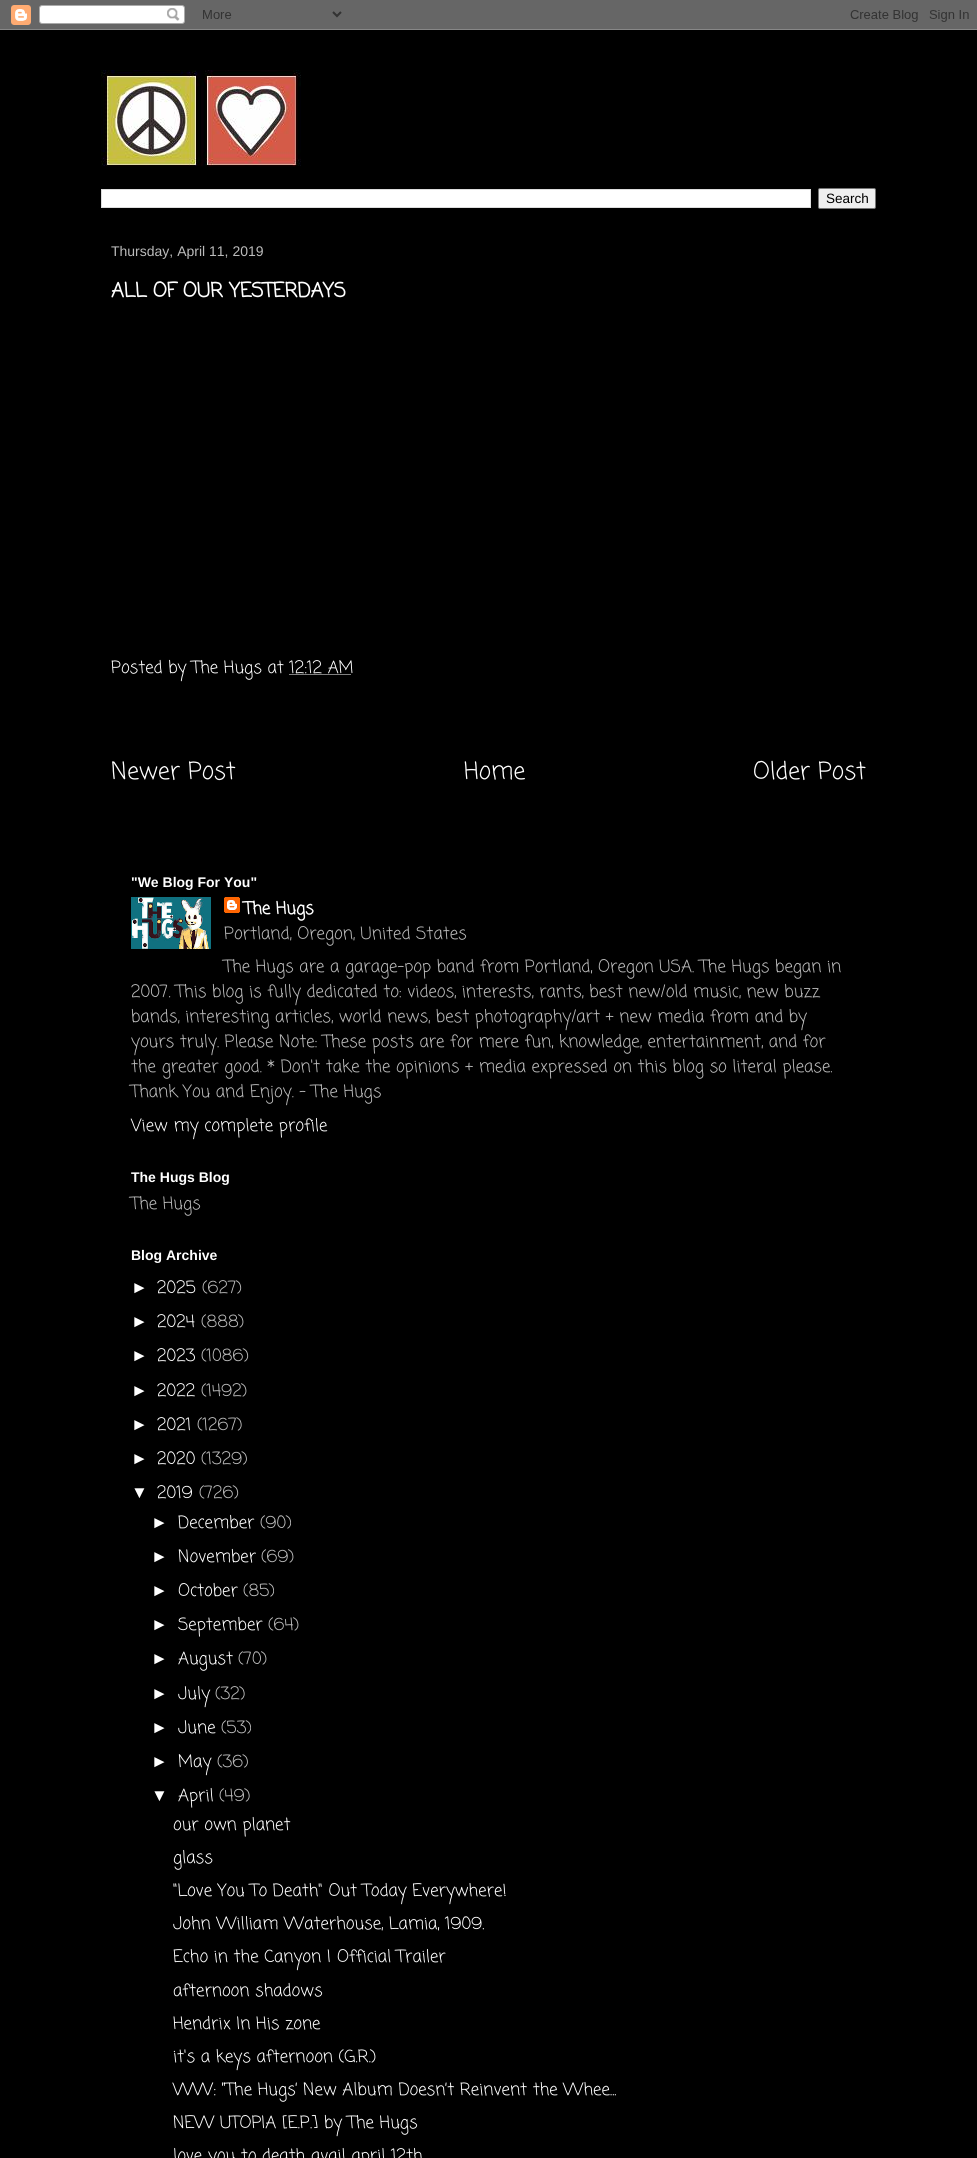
#include <cairo.h>
#include <math.h>
#include <stddef.h>


static void set_color(cairo_t *cr, unsigned color) {
    cairo_set_source_rgb(cr, (color >> 16) / 255.0, (color >> 8 & 255) / 255.0, (color & 255) / 255.0);
}

static void draw_text(cairo_t *cr, double x, double y, const char *s, const char *family, double size, int italic, int bold, unsigned color) {
    cairo_select_font_face(cr, family, italic ? CAIRO_FONT_SLANT_ITALIC : CAIRO_FONT_SLANT_NORMAL,
        bold ? CAIRO_FONT_WEIGHT_BOLD : CAIRO_FONT_WEIGHT_NORMAL);
    cairo_set_font_size(cr, size);
    set_color(cr, color);
    cairo_move_to(cr, x, y);
    cairo_show_text(cr, s);
}

static void rounded_rect(cairo_t *cr, double x, double y, double w, double h, double r) {
    cairo_new_sub_path(cr);
    cairo_arc(cr, x + w - r, y + h - r, r, 0, M_PI / 2);
    cairo_arc(cr, x + r, y + h - r, r, M_PI / 2, M_PI);
    cairo_arc(cr, x + r, y + r, r, M_PI, 1.5 * M_PI);
    cairo_arc(cr, x + w - r, y + r, r, 1.5 * M_PI, 2 * M_PI);
    cairo_close_path(cr);
}

static void draw_image(cairo_t *cr, const char *path, double x, double y, double w, double h) {
    cairo_surface_t *image = cairo_image_surface_create_from_png(path);
    cairo_save(cr);
    cairo_set_source_surface(cr, image, x, y);
    cairo_rectangle(cr, x, y, w, h);
    cairo_fill(cr);
    cairo_restore(cr);
    cairo_surface_destroy(image);
}

int main(void) {
    cairo_surface_t *surface = cairo_image_surface_create(CAIRO_FORMAT_RGB24, 977, 2158);
    cairo_t *cr = cairo_create(surface);
    cairo_font_options_t *options = cairo_font_options_create();
    cairo_font_options_set_hint_metrics(options, CAIRO_HINT_METRICS_OFF);
    cairo_font_options_set_hint_style(options, CAIRO_HINT_STYLE_NONE);
    cairo_set_font_options(cr, options);
    cairo_set_miter_limit(cr, 4);
    set_color(cr, 0x000000);
    cairo_paint(cr);
    draw_image(cr, "assets/img1.png", 0, 0, 977, 30);
    draw_image(cr, "assets/img2.png", 101, 70, 200, 97);
    set_color(cr, 0xFFFFFF);
    cairo_rectangle(cr, 101.5, 189.5, 709, 18);
    cairo_fill_preserve(cr);
    set_color(cr, 0xDDDDDD);
    cairo_set_line_width(cr, 1);
    cairo_stroke(cr);
    set_color(cr, 0xEFEFEF);
    rounded_rect(cr, 818.5, 188.5, 57, 20, 1.5);
    cairo_fill_preserve(cr);
    set_color(cr, 0x767676);
    cairo_stroke(cr);
    draw_text(cr, 826, 203, "Search", "Liberation Sans", 13.5, 0, 0, 0x000000);
    draw_text(cr, 111, 256, "Thursday, April 11, 2019", "Liberation Sans", 14, 0, 0, 0xBBBBBB);
    draw_text(cr, 111, 297, "ALL OF OUR YESTERDAYS", "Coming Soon", 19.9, 0, 1, 0xFFFFFF);
    draw_text(cr, 111, 673, "Posted by The Hugs at 12:12 AM", "Coming Soon", 17, 0, 0, 0xFFFFFF);
    cairo_new_path(cr);
    cairo_move_to(cr, 289.5, 674.5);
    cairo_line_to(cr, 351, 674.5);
    cairo_set_dash(cr, (double[]){1, 1}, 2, 0);
    cairo_stroke(cr);
    draw_text(cr, 111, 779, "Newer Post", "Coming Soon", 23.75, 0, 0, 0xFFFFFF);
    draw_text(cr, 464, 779, "Home", "Coming Soon", 23.75, 0, 0, 0xFFFFFF);
    draw_text(cr, 753, 779, "Older Post", "Coming Soon", 23.75, 0, 0, 0xFFFFFF);
    draw_text(cr, 131, 887, "\"We Blog For You\"", "Liberation Sans", 14, 0, 1, 0xFFFFFF);
    draw_image(cr, "assets/img3.png", 131, 897, 80, 52);
    draw_image(cr, "assets/img4.png", 224, 897, 16, 16);
    draw_text(cr, 244, 914, "The Hugs", "Coming Soon", 17, 0, 1, 0xFFFFFF);
    draw_text(cr, 224, 939, "Portland, Oregon, United States", "Coming Soon", 17, 0, 0, 0xBBBBBB);
    draw_text(cr, 224, 972, "The Hugs are a garage-pop band from Portland, Oregon USA. The Hugs began in", "Coming Soon", 17, 0, 0, 0xBBBBBB);
    draw_text(cr, 131, 997, "2007. This blog is fully dedicated to: videos, interests, rants, best new/old music, new buzz", "Coming Soon", 17, 0, 0, 0xBBBBBB);
    draw_text(cr, 131, 1022, "bands, interesting articles, world news, best photography/art + new media from and by", "Coming Soon", 17, 0, 0, 0xBBBBBB);
    draw_text(cr, 131, 1047, "yours truly. Please Note: These posts are for mere fun, knowledge, entertainment, and for", "Coming Soon", 17, 0, 0, 0xBBBBBB);
    draw_text(cr, 131, 1072, "the greater good. * Don't take the opinions + media expressed on this blog so literal please.", "Coming Soon", 17, 0, 0, 0xBBBBBB);
    draw_text(cr, 131, 1097, "Thank You and Enjoy. - The Hugs", "Coming Soon", 17, 0, 0, 0xBBBBBB);
    draw_text(cr, 131, 1131, "View my complete profile", "Coming Soon", 17, 0, 0, 0xFFFFFF);
    draw_text(cr, 131, 1182, "The Hugs Blog", "Liberation Sans", 14, 0, 1, 0xFFFFFF);
    draw_text(cr, 131, 1209, "The Hugs", "Coming Soon", 17, 0, 0, 0xBBBBBB);
    draw_text(cr, 131, 1260, "Blog Archive", "Liberation Sans", 14, 0, 1, 0xFFFFFF);
    draw_text(cr, 131, 1293, "►", "Liberation Sans", 17, 0, 0, 0xFFFFFF);
    draw_text(cr, 157, 1293, "2025", "Coming Soon", 17, 0, 0, 0xFFFFFF);
    draw_text(cr, 202, 1293, "(627)", "Coming Soon", 17, 0, 0, 0xBBBBBB);
    draw_text(cr, 131, 1327, "►", "Liberation Sans", 17, 0, 0, 0xFFFFFF);
    draw_text(cr, 157, 1327, "2024", "Coming Soon", 17, 0, 0, 0xFFFFFF);
    draw_text(cr, 201, 1327, "(888)", "Coming Soon", 17, 0, 0, 0xBBBBBB);
    draw_text(cr, 131, 1361, "►", "Liberation Sans", 17, 0, 0, 0xFFFFFF);
    draw_text(cr, 157, 1361, "2023", "Coming Soon", 17, 0, 0, 0xFFFFFF);
    draw_text(cr, 201, 1361, "(1086)", "Coming Soon", 17, 0, 0, 0xBBBBBB);
    draw_text(cr, 131, 1396, "►", "Liberation Sans", 17, 0, 0, 0xFFFFFF);
    draw_text(cr, 157, 1396, "2022", "Coming Soon", 17, 0, 0, 0xFFFFFF);
    draw_text(cr, 201, 1396, "(1492)", "Coming Soon", 17, 0, 0, 0xBBBBBB);
    draw_text(cr, 131, 1430, "►", "Liberation Sans", 17, 0, 0, 0xFFFFFF);
    draw_text(cr, 157, 1430, "2021", "Coming Soon", 17, 0, 0, 0xFFFFFF);
    draw_text(cr, 197, 1430, "(1267)", "Coming Soon", 17, 0, 0, 0xBBBBBB);
    draw_text(cr, 131, 1464, "►", "Liberation Sans", 17, 0, 0, 0xFFFFFF);
    draw_text(cr, 157, 1464, "2020", "Coming Soon", 17, 0, 0, 0xFFFFFF);
    draw_text(cr, 201, 1464, "(1329)", "Coming Soon", 17, 0, 0, 0xBBBBBB);
    draw_text(cr, 131, 1498, "▼", "Liberation Sans", 17, 0, 0, 0xFFFFFF);
    draw_text(cr, 157, 1498, "2019", "Coming Soon", 17, 0, 0, 0xFFFFFF);
    draw_text(cr, 199, 1498, "(726)", "Coming Soon", 17, 0, 0, 0xBBBBBB);
    draw_text(cr, 151, 1528, "►", "Liberation Sans", 17, 0, 0, 0xFFFFFF);
    draw_text(cr, 178, 1528, "December", "Coming Soon", 17, 0, 0, 0xFFFFFF);
    draw_text(cr, 260, 1528, "(90)", "Coming Soon", 17, 0, 0, 0xBBBBBB);
    draw_text(cr, 151, 1562, "►", "Liberation Sans", 17, 0, 0, 0xFFFFFF);
    draw_text(cr, 178, 1562, "November", "Coming Soon", 17, 0, 0, 0xFFFFFF);
    draw_text(cr, 261, 1562, "(69)", "Coming Soon", 17, 0, 0, 0xBBBBBB);
    draw_text(cr, 151, 1596, "►", "Liberation Sans", 17, 0, 0, 0xFFFFFF);
    draw_text(cr, 178, 1596, "October", "Coming Soon", 17, 0, 0, 0xFFFFFF);
    draw_text(cr, 243, 1596, "(85)", "Coming Soon", 17, 0, 0, 0xBBBBBB);
    draw_text(cr, 151, 1630, "►", "Liberation Sans", 17, 0, 0, 0xFFFFFF);
    draw_text(cr, 178, 1630, "September", "Coming Soon", 17, 0, 0, 0xFFFFFF);
    draw_text(cr, 268, 1630, "(64)", "Coming Soon", 17, 0, 0, 0xBBBBBB);
    draw_text(cr, 151, 1664, "►", "Liberation Sans", 17, 0, 0, 0xFFFFFF);
    draw_text(cr, 178, 1664, "August", "Coming Soon", 17, 0, 0, 0xFFFFFF);
    draw_text(cr, 238, 1664, "(70)", "Coming Soon", 17, 0, 0, 0xBBBBBB);
    draw_text(cr, 151, 1699, "►", "Liberation Sans", 17, 0, 0, 0xFFFFFF);
    draw_text(cr, 178, 1699, "July", "Coming Soon", 17, 0, 0, 0xFFFFFF);
    draw_text(cr, 215, 1699, "(32)", "Coming Soon", 17, 0, 0, 0xBBBBBB);
    draw_text(cr, 151, 1733, "►", "Liberation Sans", 17, 0, 0, 0xFFFFFF);
    draw_text(cr, 178, 1733, "June", "Coming Soon", 17, 0, 0, 0xFFFFFF);
    draw_text(cr, 221, 1733, "(53)", "Coming Soon", 17, 0, 0, 0xBBBBBB);
    draw_text(cr, 151, 1767, "►", "Liberation Sans", 17, 0, 0, 0xFFFFFF);
    draw_text(cr, 178, 1767, "May", "Coming Soon", 17, 0, 0, 0xFFFFFF);
    draw_text(cr, 217, 1767, "(36)", "Coming Soon", 17, 0, 0, 0xBBBBBB);
    draw_text(cr, 151, 1801, "▼", "Liberation Sans", 17, 0, 0, 0xFFFFFF);
    draw_text(cr, 178, 1801, "April", "Coming Soon", 17, 0, 0, 0xFFFFFF);
    draw_text(cr, 219, 1801, "(49)", "Coming Soon", 17, 0, 0, 0xBBBBBB);
    draw_text(cr, 173, 1830, "our own planet", "Coming Soon", 17, 0, 0, 0xFFFFFF);
    draw_text(cr, 173, 1863, "glass", "Coming Soon", 17, 0, 0, 0xFFFFFF);
    draw_text(cr, 173, 1896, "\"Love You To Death\" Out Today Everywhere!", "Coming Soon", 17, 0, 0, 0xFFFFFF);
    draw_text(cr, 173, 1929, "John William Waterhouse, Lamia, 1909.", "Coming Soon", 17, 0, 0, 0xFFFFFF);
    draw_text(cr, 173, 1962, "Echo in the Canyon | Official Trailer", "Coming Soon", 17, 0, 0, 0xFFFFFF);
    draw_text(cr, 173, 1996, "afternoon shadows", "Coming Soon", 17, 0, 0, 0xFFFFFF);
    draw_text(cr, 173, 2029, "Hendrix In His zone", "Coming Soon", 17, 0, 0, 0xFFFFFF);
    draw_text(cr, 173, 2062, "it's a keys afternoon (G.R.)", "Coming Soon", 17, 0, 0, 0xFFFFFF);
    draw_text(cr, 173, 2095, "WW: \"The Hugs’ New Album Doesn’t Reinvent the Whee...", "Coming Soon", 17, 0, 0, 0xFFFFFF);
    draw_text(cr, 173, 2128, "NEW UTOPIA [E.P.] by The Hugs", "Coming Soon", 17, 0, 0, 0xFFFFFF);
    draw_text(cr, 173, 2161, "love you to death avail april 12th", "Coming Soon", 17, 0, 0, 0xFFFFFF);
    cairo_surface_write_to_png(surface, "output.png");
    cairo_font_options_destroy(options);
    cairo_destroy(cr);
    cairo_surface_destroy(surface);
    return 0;
}
